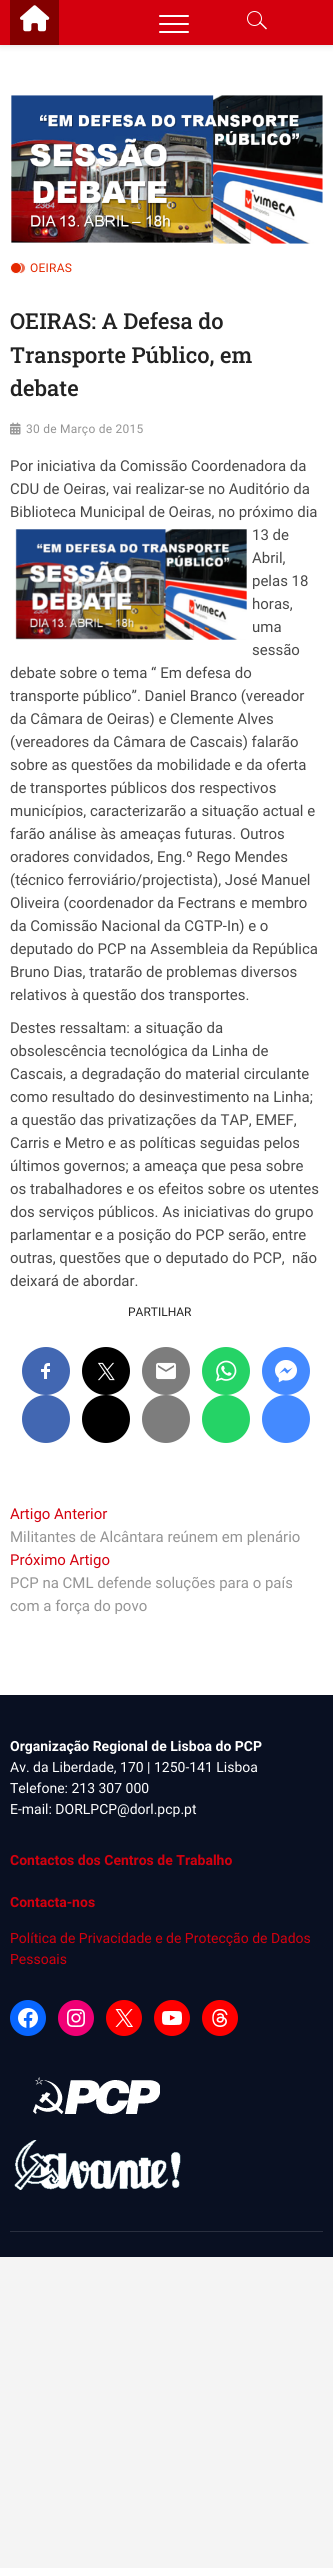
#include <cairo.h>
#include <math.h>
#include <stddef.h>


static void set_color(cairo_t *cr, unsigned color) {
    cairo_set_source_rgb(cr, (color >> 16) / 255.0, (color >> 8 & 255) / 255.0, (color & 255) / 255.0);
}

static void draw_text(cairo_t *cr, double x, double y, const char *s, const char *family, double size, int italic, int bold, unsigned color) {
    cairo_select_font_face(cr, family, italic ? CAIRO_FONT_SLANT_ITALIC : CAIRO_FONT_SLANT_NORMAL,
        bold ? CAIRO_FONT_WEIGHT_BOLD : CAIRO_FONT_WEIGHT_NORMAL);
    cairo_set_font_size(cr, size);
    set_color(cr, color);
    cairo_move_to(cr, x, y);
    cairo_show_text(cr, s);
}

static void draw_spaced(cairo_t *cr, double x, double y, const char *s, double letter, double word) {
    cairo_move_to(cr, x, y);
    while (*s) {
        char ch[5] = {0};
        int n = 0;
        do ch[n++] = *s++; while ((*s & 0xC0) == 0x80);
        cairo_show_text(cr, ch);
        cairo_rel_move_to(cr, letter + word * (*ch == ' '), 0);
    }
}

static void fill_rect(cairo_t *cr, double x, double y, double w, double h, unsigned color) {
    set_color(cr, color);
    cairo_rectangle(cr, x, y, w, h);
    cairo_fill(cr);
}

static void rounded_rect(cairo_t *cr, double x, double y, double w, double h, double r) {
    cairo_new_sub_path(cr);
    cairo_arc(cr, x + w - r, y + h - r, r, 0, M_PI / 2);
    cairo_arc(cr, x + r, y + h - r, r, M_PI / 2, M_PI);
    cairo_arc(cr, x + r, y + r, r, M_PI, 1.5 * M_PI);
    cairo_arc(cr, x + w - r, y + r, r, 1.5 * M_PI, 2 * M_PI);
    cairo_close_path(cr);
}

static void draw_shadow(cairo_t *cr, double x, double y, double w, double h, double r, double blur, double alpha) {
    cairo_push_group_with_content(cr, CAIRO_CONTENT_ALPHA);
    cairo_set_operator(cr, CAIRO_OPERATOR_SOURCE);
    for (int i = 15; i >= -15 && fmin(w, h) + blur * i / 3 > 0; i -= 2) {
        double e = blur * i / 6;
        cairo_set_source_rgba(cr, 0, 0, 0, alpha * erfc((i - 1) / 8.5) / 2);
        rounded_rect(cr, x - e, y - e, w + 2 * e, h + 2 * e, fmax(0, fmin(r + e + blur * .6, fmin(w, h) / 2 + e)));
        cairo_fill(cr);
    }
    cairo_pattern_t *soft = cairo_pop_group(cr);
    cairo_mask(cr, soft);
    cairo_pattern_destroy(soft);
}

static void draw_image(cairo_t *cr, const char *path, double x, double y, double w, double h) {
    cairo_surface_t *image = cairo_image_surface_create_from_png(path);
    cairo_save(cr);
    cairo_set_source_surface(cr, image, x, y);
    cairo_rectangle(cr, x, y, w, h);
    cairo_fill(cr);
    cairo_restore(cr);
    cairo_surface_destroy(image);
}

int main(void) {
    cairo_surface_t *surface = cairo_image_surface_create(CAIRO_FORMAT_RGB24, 333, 2568);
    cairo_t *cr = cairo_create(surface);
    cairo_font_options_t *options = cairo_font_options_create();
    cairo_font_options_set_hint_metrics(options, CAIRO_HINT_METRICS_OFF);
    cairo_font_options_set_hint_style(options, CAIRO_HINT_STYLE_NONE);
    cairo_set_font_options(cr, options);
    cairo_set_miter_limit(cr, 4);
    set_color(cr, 0xF4F4F4);
    cairo_paint(cr);
    fill_rect(cr, 0, 45, 333, 1650, 0xFFFFFF);
    set_color(cr, 0x000000);
    draw_shadow(cr, 0, 0, 333, 45, 0, 4, 0.15);
    fill_rect(cr, 0, 0, 333, 45, 0xD4000E);
    fill_rect(cr, 10, 0, 49, 45, 0x840000);
    draw_image(cr, "assets/img1.png", 20, 5, 30, 27);
    set_color(cr, 0xFFFFFF);
    rounded_rect(cr, 159, 23, 30, 2, 1);
    cairo_fill(cr);
    rounded_rect(cr, 159, 15, 30, 2, 1);
    cairo_fill(cr);
    rounded_rect(cr, 159, 31, 30, 2, 1);
    cairo_fill(cr);
    cairo_arc(cr, 254.5, 18.5, 7, 0, 2 * M_PI);
    cairo_set_line_width(cr, 1);
    cairo_stroke(cr);
    cairo_new_path(cr);
    cairo_move_to(cr, 259, 22.5);
    cairo_line_to(cr, 260, 21.5);
    cairo_line_to(cr, 267, 28.5);
    cairo_line_to(cr, 266, 29.5);
    cairo_close_path(cr);
    cairo_fill(cr);
    draw_image(cr, "assets/img2.png", 11, 95, 312, 149);
    set_color(cr, 0xEC694D);
    cairo_arc(cr, 20, 268, 5.5, 0, 2 * M_PI);
    cairo_fill_preserve(cr);
    set_color(cr, 0xFFFFFF);
    cairo_stroke(cr);
    set_color(cr, 0xE42800);
    cairo_arc(cr, 16, 268, 5.5, 0, 2 * M_PI);
    cairo_fill_preserve(cr);
    set_color(cr, 0xFFFFFF);
    cairo_stroke(cr);
    cairo_select_font_face(cr, "Roboto", CAIRO_FONT_SLANT_NORMAL, CAIRO_FONT_WEIGHT_NORMAL);
    cairo_set_font_size(cr, 12);
    set_color(cr, 0xE42800);
    draw_spaced(cr, 30, 272, "OEIRAS", 0.25, 0);
    draw_text(cr, 10, 329, "OEIRAS: A Defesa do", "Roboto Slab Medium", 22, 0, 0, 0x222222);
    draw_text(cr, 10, 363, "Transporte Público, em", "Roboto Slab Medium", 22, 0, 0, 0x222222);
    draw_text(cr, 10, 396, "debate", "Roboto Slab Medium", 22, 0, 0, 0x222222);
    draw_image(cr, "assets/img3.png", 10, 422, 11, 13);
    cairo_select_font_face(cr, "Roboto", CAIRO_FONT_SLANT_NORMAL, CAIRO_FONT_WEIGHT_NORMAL);
    cairo_set_font_size(cr, 12);
    set_color(cr, 0x949494);
    draw_spaced(cr, 26, 433, "30 de Março de 2015", 0.25, 0);
    draw_text(cr, 10, 471, "Por iniciativa da Comissão Coordenadora da", "Roboto", 15, 0, 0, 0x484848);
    draw_text(cr, 10, 494, "CDU de Oeiras, vai realizar-se no Auditório da", "Roboto", 15, 0, 0, 0x484848);
    draw_text(cr, 10, 517, "Biblioteca Municipal de Oeiras, no próximo dia", "Roboto", 15, 0, 0, 0x484848);
    draw_image(cr, "assets/img4.png", 15, 529, 232, 111);
    draw_text(cr, 252, 540, "13 de", "Roboto", 15, 0, 0, 0x484848);
    draw_text(cr, 252, 563, "Abril,", "Roboto", 15, 0, 0, 0x484848);
    draw_text(cr, 252, 586, "pelas 18", "Roboto", 15, 0, 0, 0x484848);
    draw_text(cr, 252, 609, "horas,", "Roboto", 15, 0, 0, 0x484848);
    draw_text(cr, 252, 632, "uma", "Roboto", 15, 0, 0, 0x484848);
    draw_text(cr, 252, 655, "sessão", "Roboto", 15, 0, 0, 0x484848);
    draw_text(cr, 10, 678, "debate sobre o tema “ Em defesa do", "Roboto", 15, 0, 0, 0x484848);
    draw_text(cr, 10, 701, "transporte público”. Daniel Branco (vereador", "Roboto", 15, 0, 0, 0x484848);
    draw_text(cr, 10, 724, "da Câmara de Oeiras) e Clemente Alves", "Roboto", 15, 0, 0, 0x484848);
    draw_text(cr, 10, 747, "(vereadores da Câmara de Cascais) falarão", "Roboto", 15, 0, 0, 0x484848);
    draw_text(cr, 10, 770, "sobre as questões da mobilidade e da oferta", "Roboto", 15, 0, 0, 0x484848);
    draw_text(cr, 10, 793, "de transportes públicos dos respectivos", "Roboto", 15, 0, 0, 0x484848);
    draw_text(cr, 10, 816, "municípios, caracterizarão a situação actual e", "Roboto", 15, 0, 0, 0x484848);
    draw_text(cr, 10, 839, "farão análise às ameaças futuras. Outros", "Roboto", 15, 0, 0, 0x484848);
    draw_text(cr, 10, 862, "oradores convidados, Eng.º Rego Mendes", "Roboto", 15, 0, 0, 0x484848);
    draw_text(cr, 10, 885, "(técnico ferroviário/projectista), José Manuel", "Roboto", 15, 0, 0, 0x484848);
    draw_text(cr, 10, 908, "Oliveira (coordenador da Fectrans e membro", "Roboto", 15, 0, 0, 0x484848);
    draw_text(cr, 10, 931, "da Comissão Nacional da CGTP-In) e o", "Roboto", 15, 0, 0, 0x484848);
    draw_text(cr, 10, 954, "deputado do PCP na Assembleia da República", "Roboto", 15, 0, 0, 0x484848);
    draw_text(cr, 10, 977, "Bruno Dias, tratarão de problemas diversos", "Roboto", 15, 0, 0, 0x484848);
    draw_text(cr, 10, 1000, "relativos à questão dos transportes.", "Roboto", 15, 0, 0, 0x484848);
    draw_text(cr, 10, 1033, "Destes ressaltam: a situação da", "Roboto", 15, 0, 0, 0x484848);
    draw_text(cr, 10, 1056, "obsolescência tecnológica da Linha de", "Roboto", 15, 0, 0, 0x484848);
    draw_text(cr, 10, 1079, "Cascais, a degradação do material circulante", "Roboto", 15, 0, 0, 0x484848);
    draw_text(cr, 10, 1102, "como resultado do desinvestimento na Linha;", "Roboto", 15, 0, 0, 0x484848);
    draw_text(cr, 10, 1125, "a questão das privatizações da TAP, EMEF,", "Roboto", 15, 0, 0, 0x484848);
    draw_text(cr, 10, 1148, "Carris e Metro e as políticas seguidas pelos", "Roboto", 15, 0, 0, 0x484848);
    draw_text(cr, 10, 1171, "últimos governos; a ameaça que pesa sobre", "Roboto", 15, 0, 0, 0x484848);
    draw_text(cr, 10, 1194, "os trabalhadores e os efeitos sobre os utentes", "Roboto", 15, 0, 0, 0x484848);
    draw_text(cr, 10, 1217, "dos serviços públicos. As iniciativas do grupo", "Roboto", 15, 0, 0, 0x484848);
    draw_text(cr, 10, 1240, "parlamentar e a posição do PCP serão, entre", "Roboto", 15, 0, 0, 0x484848);
    draw_text(cr, 10, 1263, "outras, questões que o deputado do PCP,  não", "Roboto", 15, 0, 0, 0x484848);
    draw_text(cr, 10, 1286, "deixará de abordar.", "Roboto", 15, 0, 0, 0x484848);
    draw_text(cr, 128, 1316, "PARTILHAR", "Roboto", 12, 0, 0, 0x222222);
    set_color(cr, 0x4267B2);
    cairo_new_path(cr);
    cairo_arc(cr, 46, 1371, 24, 0, 2 * M_PI);
    cairo_fill(cr);
    draw_image(cr, "assets/img5.png", 41, 1363, 9, 16);
    cairo_arc(cr, 46, 1419, 24, 0, 2 * M_PI);
    cairo_fill(cr);
    set_color(cr, 0x000000);
    cairo_arc(cr, 106, 1371, 24, 0, 2 * M_PI);
    cairo_fill(cr);
    draw_image(cr, "assets/img6.png", 98, 1362, 17, 19);
    cairo_arc(cr, 106, 1419, 24, 0, 2 * M_PI);
    cairo_fill(cr);
    set_color(cr, 0x7D7D7D);
    cairo_arc(cr, 166, 1371, 24, 0, 2 * M_PI);
    cairo_fill(cr);
    draw_image(cr, "assets/img7.png", 156, 1362, 20, 18);
    cairo_arc(cr, 166, 1419, 24, 0, 2 * M_PI);
    cairo_fill(cr);
    set_color(cr, 0x25D366);
    cairo_arc(cr, 226, 1371, 24, 0, 2 * M_PI);
    cairo_fill(cr);
    draw_image(cr, "assets/img8.png", 215, 1360, 22, 22);
    cairo_arc(cr, 226, 1419, 24, 0, 2 * M_PI);
    cairo_fill(cr);
    set_color(cr, 0x448AFF);
    cairo_arc(cr, 286, 1371, 24, 0, 2 * M_PI);
    cairo_fill(cr);
    draw_image(cr, "assets/img9.png", 275, 1360, 22, 23);
    cairo_arc(cr, 286, 1419, 24, 0, 2 * M_PI);
    cairo_fill(cr);
    draw_text(cr, 10, 1519, "Artigo Anterior", "Roboto", 15, 0, 0, 0xD4000E);
    draw_text(cr, 10, 1542, "Militantes de Alcântara reúnem em plenário", "Roboto", 15, 0, 0, 0x949494);
    draw_text(cr, 10, 1565, "Próximo Artigo", "Roboto", 15, 0, 0, 0xD4000E);
    draw_text(cr, 10, 1588, "PCP na CML defende soluções para o país", "Roboto", 15, 0, 0, 0x949494);
    draw_text(cr, 10, 1611, "com a força do povo", "Roboto", 15, 0, 0, 0x949494);
    fill_rect(cr, 0, 1696, 333, 561, 0x091022);
    fill_rect(cr, 0, 1695, 333, 1, 0x090F20);
    draw_text(cr, 10, 1751, "Organização Regional de Lisboa do PCP", "Roboto", 14, 0, 1, 0xFFFFFF);
    draw_text(cr, 10, 1772, "Av. da Liberdade, 170 | 1250-141 Lisboa", "Roboto", 14, 0, 0, 0xFFFFFF);
    draw_text(cr, 10, 1793, "Telefone: 213 307 000", "Roboto", 14, 0, 0, 0xFFFFFF);
    draw_text(cr, 10, 1814, "E-mail: DORLPCP@dorl.pcp.pt", "Roboto", 14, 0, 0, 0xFFFFFF);
    draw_text(cr, 10, 1865, "Contactos dos Centros de Trabalho", "Roboto", 14, 0, 1, 0xD4000E);
    draw_text(cr, 10, 1907, "Contacta-nos", "Roboto", 14, 0, 1, 0xD4000E);
    draw_text(cr, 10, 1943, "Política de Privacidade e de Protecção de Dados", "Roboto", 14, 0, 0, 0xD4000E);
    draw_text(cr, 10, 1964, "Pessoais", "Roboto", 14, 0, 0, 0xD4000E);
    set_color(cr, 0x0866FF);
    cairo_new_path(cr);
    cairo_arc(cr, 28, 2018, 18, 0, 2 * M_PI);
    cairo_fill(cr);
    draw_image(cr, "assets/img10.png", 18, 2008, 20, 20);
    set_color(cr, 0xF00075);
    cairo_arc(cr, 76, 2018, 18, 0, 2 * M_PI);
    cairo_fill(cr);
    draw_image(cr, "assets/img11.png", 67, 2009, 18, 18);
    set_color(cr, 0xFF0000);
    cairo_arc(cr, 124, 2018, 18, 0, 2 * M_PI);
    cairo_fill(cr);
    draw_image(cr, "assets/img12.png", 115, 2009, 18, 18);
    cairo_arc(cr, 172, 2018, 18, 0, 2 * M_PI);
    cairo_fill(cr);
    draw_image(cr, "assets/img13.png", 162, 2011, 20, 14);
    cairo_arc(cr, 220, 2018, 18, 0, 2 * M_PI);
    cairo_fill(cr);
    draw_image(cr, "assets/img14.png", 212, 2009, 16, 18);
    draw_image(cr, "assets/img15.png", 33, 2077, 127, 37);
    draw_image(cr, "assets/img16.png", 14, 2140, 167, 50);
    fill_rect(cr, 10, 2231, 313, 1, 0x292F3F);
    cairo_surface_write_to_png(surface, "output.png");
    cairo_font_options_destroy(options);
    cairo_destroy(cr);
    cairo_surface_destroy(surface);
    return 0;
}
